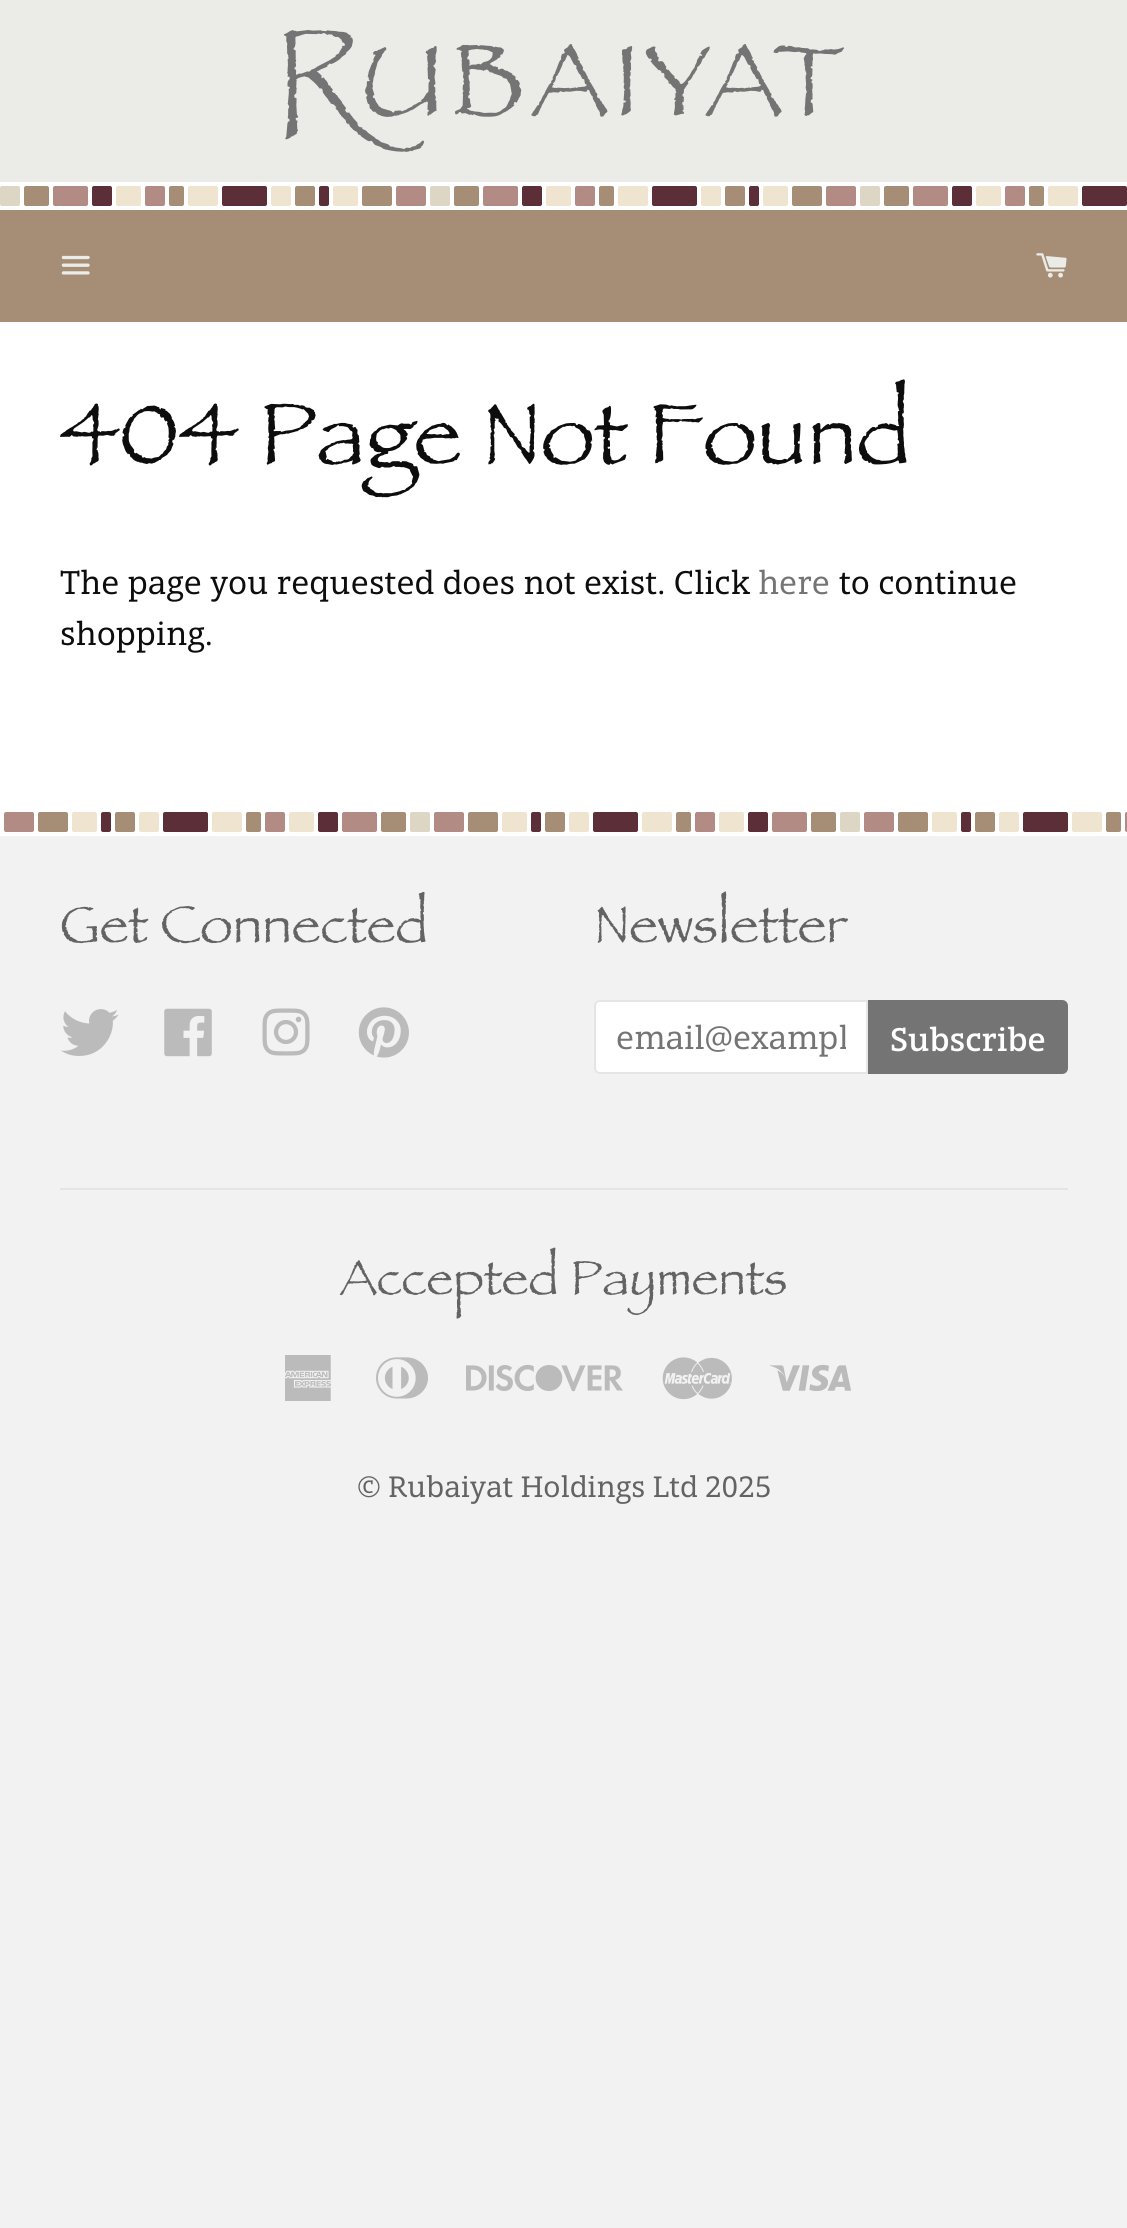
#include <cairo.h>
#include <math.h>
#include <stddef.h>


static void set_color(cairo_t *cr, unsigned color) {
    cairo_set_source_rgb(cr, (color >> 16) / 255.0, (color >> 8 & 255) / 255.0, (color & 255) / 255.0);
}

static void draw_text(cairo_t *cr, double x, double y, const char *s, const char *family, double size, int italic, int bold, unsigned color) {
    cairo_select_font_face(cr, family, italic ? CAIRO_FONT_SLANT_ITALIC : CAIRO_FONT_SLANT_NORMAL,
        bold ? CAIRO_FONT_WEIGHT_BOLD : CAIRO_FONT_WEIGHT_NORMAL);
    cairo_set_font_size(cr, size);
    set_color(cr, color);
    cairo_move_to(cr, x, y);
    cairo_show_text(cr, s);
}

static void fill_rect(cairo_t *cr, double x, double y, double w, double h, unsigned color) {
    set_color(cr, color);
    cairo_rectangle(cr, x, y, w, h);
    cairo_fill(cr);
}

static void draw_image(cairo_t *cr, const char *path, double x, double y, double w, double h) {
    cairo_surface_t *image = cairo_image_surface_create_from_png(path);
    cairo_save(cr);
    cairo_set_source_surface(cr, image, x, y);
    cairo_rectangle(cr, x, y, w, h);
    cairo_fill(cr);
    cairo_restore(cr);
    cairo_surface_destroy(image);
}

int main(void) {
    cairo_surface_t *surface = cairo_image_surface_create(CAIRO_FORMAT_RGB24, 1127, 2228);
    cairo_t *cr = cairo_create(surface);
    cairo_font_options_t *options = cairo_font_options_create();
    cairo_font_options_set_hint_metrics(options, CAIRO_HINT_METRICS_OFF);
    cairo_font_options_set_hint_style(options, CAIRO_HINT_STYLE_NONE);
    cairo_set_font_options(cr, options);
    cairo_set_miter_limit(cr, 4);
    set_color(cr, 0xF2F2F2);
    cairo_paint(cr);
    fill_rect(cr, 0, 322, 1127, 514, 0xFFFFFF);
    fill_rect(cr, 0, 0, 1127, 182, 0xEBECE7);
    draw_image(cr, "assets/img1.png", 284, 30, 560, 122);
    fill_rect(cr, 0, 210, 1127, 112, 0xA68E76);
    fill_rect(cr, 0, 182, 1127, 28, 0xFFFFFF);
    draw_image(cr, "assets/img2.png", 0, 186, 1127, 20);
    draw_image(cr, "assets/img3.png", 61, 255, 29, 20);
    draw_image(cr, "assets/img4.png", 1036, 253, 31, 25);
    draw_text(cr, 60, 463, "404 Page Not Found", "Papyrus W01", 90, 0, 0, 0x0C0D0C);
    draw_text(cr, 60, 594, "The page you requested does not exist. Click", "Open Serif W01", 32, 0, 0, 0x0C0D0C);
    draw_text(cr, 758, 594, "here", "Open Serif W01", 32, 0, 0, 0x747474);
    draw_text(cr, 839, 594, "to continue", "Open Serif W01", 32, 0, 0, 0x0C0D0C);
    draw_text(cr, 60, 645, "shopping.", "Open Serif W01", 32, 0, 0, 0x0C0D0C);
    draw_image(cr, "assets/img5.png", 4, 812, 1123, 20);
    draw_text(cr, 60, 942, "Get Connected", "Papyrus W01", 54, 0, 0, 0x636363);
    draw_image(cr, "assets/img6.png", 61, 1009, 58, 47);
    draw_image(cr, "assets/img7.png", 164, 1008, 48, 49);
    draw_image(cr, "assets/img8.png", 262, 1008, 48, 48);
    draw_image(cr, "assets/img9.png", 358, 1007, 51, 51);
    draw_text(cr, 594, 942, "Newsletter", "Papyrus W01", 54, 0, 0, 0x636363);
    set_color(cr, 0xFFFFFF);
    cairo_new_path(cr);
    cairo_move_to(cr, 600, 1001);
    cairo_line_to(cr, 867, 1001);
    cairo_line_to(cr, 867, 1073);
    cairo_line_to(cr, 600, 1073);
    cairo_curve_to(cr, 597, 1073, 595, 1071, 595, 1068);
    cairo_line_to(cr, 595, 1006);
    cairo_curve_to(cr, 595, 1003, 597, 1001, 600, 1001);
    cairo_close_path(cr);
    cairo_fill_preserve(cr);
    set_color(cr, 0xE5E5E5);
    cairo_stroke(cr);
    cairo_save(cr);
    cairo_rectangle(cr, 616, 1016, 230, 42);
    cairo_clip(cr);
    draw_text(cr, 616, 1049, "email@exampl", "Open Serif W01", 32, 0, 0, 0x747474);
    cairo_restore(cr);
    set_color(cr, 0x747474);
    cairo_new_path(cr);
    cairo_move_to(cr, 868, 1000);
    cairo_line_to(cr, 1062, 1000);
    cairo_curve_to(cr, 1065.5, 1000, 1068, 1002.5, 1068, 1006);
    cairo_line_to(cr, 1068, 1068);
    cairo_curve_to(cr, 1068, 1071.5, 1065.5, 1074, 1062, 1074);
    cairo_line_to(cr, 868, 1074);
    cairo_close_path(cr);
    cairo_fill(cr);
    draw_text(cr, 890, 1051, "Subscribe", "Open Serif W01 SemiBold", 32, 0, 0, 0xFFFFFF);
    fill_rect(cr, 60, 1188, 1008, 2, 0xE5E5E5);
    draw_text(cr, 340, 1294, "Accepted Payments", "Papyrus W01", 50, 0, 0, 0x636363);
    draw_image(cr, "assets/img10.png", 285, 1355, 46, 46);
    draw_image(cr, "assets/img11.png", 376, 1357, 52, 42);
    draw_image(cr, "assets/img12.png", 466, 1364, 157, 28);
    draw_image(cr, "assets/img13.png", 662, 1357, 70, 43);
    draw_image(cr, "assets/img14.png", 770, 1364, 81, 27);
    draw_text(cr, 357, 1497, "© Rubaiyat Holdings Ltd 2025", "Open Serif W01", 28.75, 0, 0, 0x636363);
    cairo_surface_write_to_png(surface, "output.png");
    cairo_font_options_destroy(options);
    cairo_destroy(cr);
    cairo_surface_destroy(surface);
    return 0;
}
